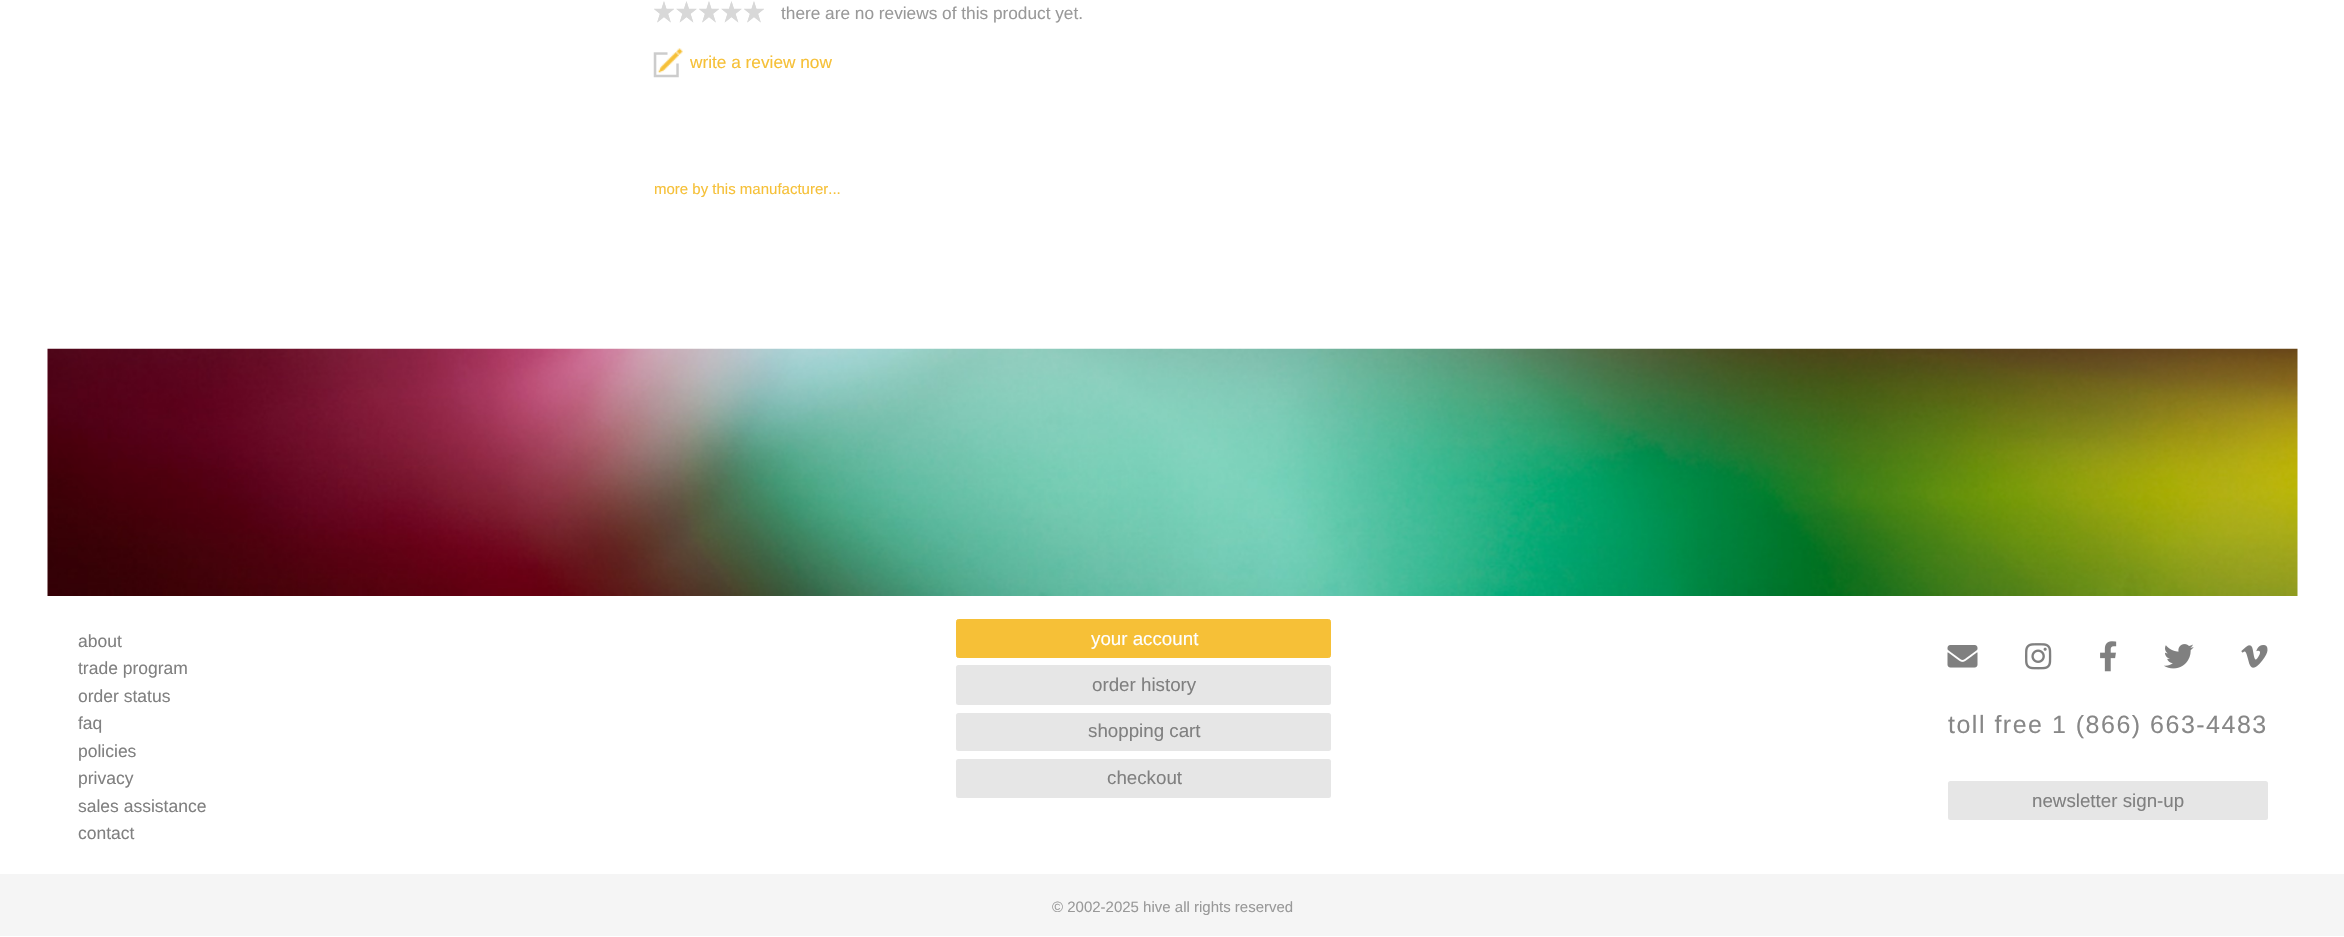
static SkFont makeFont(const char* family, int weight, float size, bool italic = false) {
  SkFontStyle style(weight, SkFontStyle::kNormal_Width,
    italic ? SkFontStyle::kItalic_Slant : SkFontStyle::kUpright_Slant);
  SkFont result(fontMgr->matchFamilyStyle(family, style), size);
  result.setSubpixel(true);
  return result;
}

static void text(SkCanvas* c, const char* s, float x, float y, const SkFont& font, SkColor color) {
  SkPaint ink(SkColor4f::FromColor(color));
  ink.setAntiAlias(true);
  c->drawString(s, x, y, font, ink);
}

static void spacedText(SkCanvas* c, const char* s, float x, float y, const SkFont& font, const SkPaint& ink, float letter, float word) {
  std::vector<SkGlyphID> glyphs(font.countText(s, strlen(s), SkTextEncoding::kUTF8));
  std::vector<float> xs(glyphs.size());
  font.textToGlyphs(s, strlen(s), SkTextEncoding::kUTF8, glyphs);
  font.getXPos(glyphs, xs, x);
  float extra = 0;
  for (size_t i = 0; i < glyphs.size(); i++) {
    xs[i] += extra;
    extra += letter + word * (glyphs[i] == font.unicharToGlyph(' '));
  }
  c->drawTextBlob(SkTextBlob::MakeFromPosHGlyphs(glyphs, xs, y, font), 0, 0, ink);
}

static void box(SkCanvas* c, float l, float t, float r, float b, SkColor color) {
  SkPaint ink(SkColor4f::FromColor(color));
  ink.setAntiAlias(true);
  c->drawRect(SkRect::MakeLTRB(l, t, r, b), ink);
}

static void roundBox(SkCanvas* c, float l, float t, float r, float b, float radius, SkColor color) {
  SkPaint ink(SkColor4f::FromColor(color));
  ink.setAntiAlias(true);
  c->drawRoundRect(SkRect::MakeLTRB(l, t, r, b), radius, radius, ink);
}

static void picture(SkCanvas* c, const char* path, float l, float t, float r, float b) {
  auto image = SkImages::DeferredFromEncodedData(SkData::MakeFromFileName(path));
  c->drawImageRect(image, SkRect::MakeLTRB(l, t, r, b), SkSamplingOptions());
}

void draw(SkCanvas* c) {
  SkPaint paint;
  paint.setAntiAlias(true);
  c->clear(0xffffffff);
  picture(c, "img_01.png", 654, 1, 674, 23);
  picture(c, "img_02.png", 676, 1, 697, 23);
  picture(c, "img_01.png", 699, 1, 719, 23);
  picture(c, "img_02.png", 721, 1, 742, 23);
  picture(c, "img_01.png", 744, 1, 764, 23);
  SkFont face1 = makeFont("Liberation Sans", 400, 17.25f);
  text(c, "there are no reviews of this product yet.", 781, 19, face1, 0xff999999);
  picture(c, "img_03.png", 653, 48, 683, 78);
  text(c, "write a review now", 690, 68, face1, 0xfff6c037);
  SkFont face2 = makeFont("Liberation Sans", 400, 15);
  text(c, "more by this manufacturer...", 654, 194, face2, 0xfff6c037);
  picture(c, "img_04.png", 47, 348, 2298, 596);
  SkFont face3 = makeFont("Liberation Sans", 400, 17.5f);
  text(c, "about", 78, 647, face3, 0xff808080);
  text(c, "trade program", 78, 674, face3, 0xff808080);
  text(c, "order status", 78, 702, face3, 0xff808080);
  text(c, "faq", 78, 729, face3, 0xff808080);
  text(c, "policies", 78, 757, face3, 0xff808080);
  text(c, "privacy", 78, 784, face3, 0xff808080);
  text(c, "sales assistance", 78, 812, face3, 0xff808080);
  text(c, "contact", 78, 839, face3, 0xff808080);
  paint.setColor(0xfff6c037);
  c->drawRoundRect(SkRect::MakeLTRB(956.5f, 619.5f, 1330.5f, 657.5f), 2, 2, paint);
  paint.setStyle(SkPaint::kStroke_Style);
  paint.setStrokeWidth(1);
  c->drawRoundRect(SkRect::MakeLTRB(956.5f, 619.5f, 1330.5f, 657.5f), 2, 2, paint);
  SkFont face4 = makeFont("Liberation Sans", 400, 18.75f);
  text(c, "your account", 1091, 645, face4, 0xffffffff);
  roundBox(c, 956, 665, 1331, 705, 2.5f, 0xffe6e6e6);
  text(c, "order history", 1092, 691, face4, 0xff808080);
  roundBox(c, 956, 713, 1331, 751, 2.5f, 0xffe6e6e6);
  text(c, "shopping cart", 1088, 737, face4, 0xff808080);
  roundBox(c, 956, 759, 1331, 798, 2.5f, 0xffe6e6e6);
  text(c, "checkout", 1107, 784, face4, 0xff808080);
  picture(c, "img_05.png", 1947, 645, 1978, 668);
  picture(c, "img_06.png", 2025, 643, 2052, 670);
  picture(c, "img_07.png", 2100, 641, 2117, 672);
  picture(c, "img_08.png", 2164, 644, 2194, 669);
  picture(c, "img_09.png", 2241, 645, 2268, 668);
  SkFont face5 = makeFont("Liberation Sans", 400, 25);
  paint.setStyle(SkPaint::kFill_Style);
  paint.setColor(0xff878787);
  spacedText(c, "toll free 1 (866) 663-4483", 1948, 733, face5, paint, 1.5f, 0);
  roundBox(c, 1948, 781, 2268, 820, 2.5f, 0xffe6e6e6);
  text(c, "newsletter sign-up", 2032, 807, face4, 0xff808080);
  box(c, 0, 874, 2344, 936, 0xfff5f5f5);
  text(c, "© 2002-2025 hive all rights reserved", 1052, 912, face2, 0xff999999);
}
